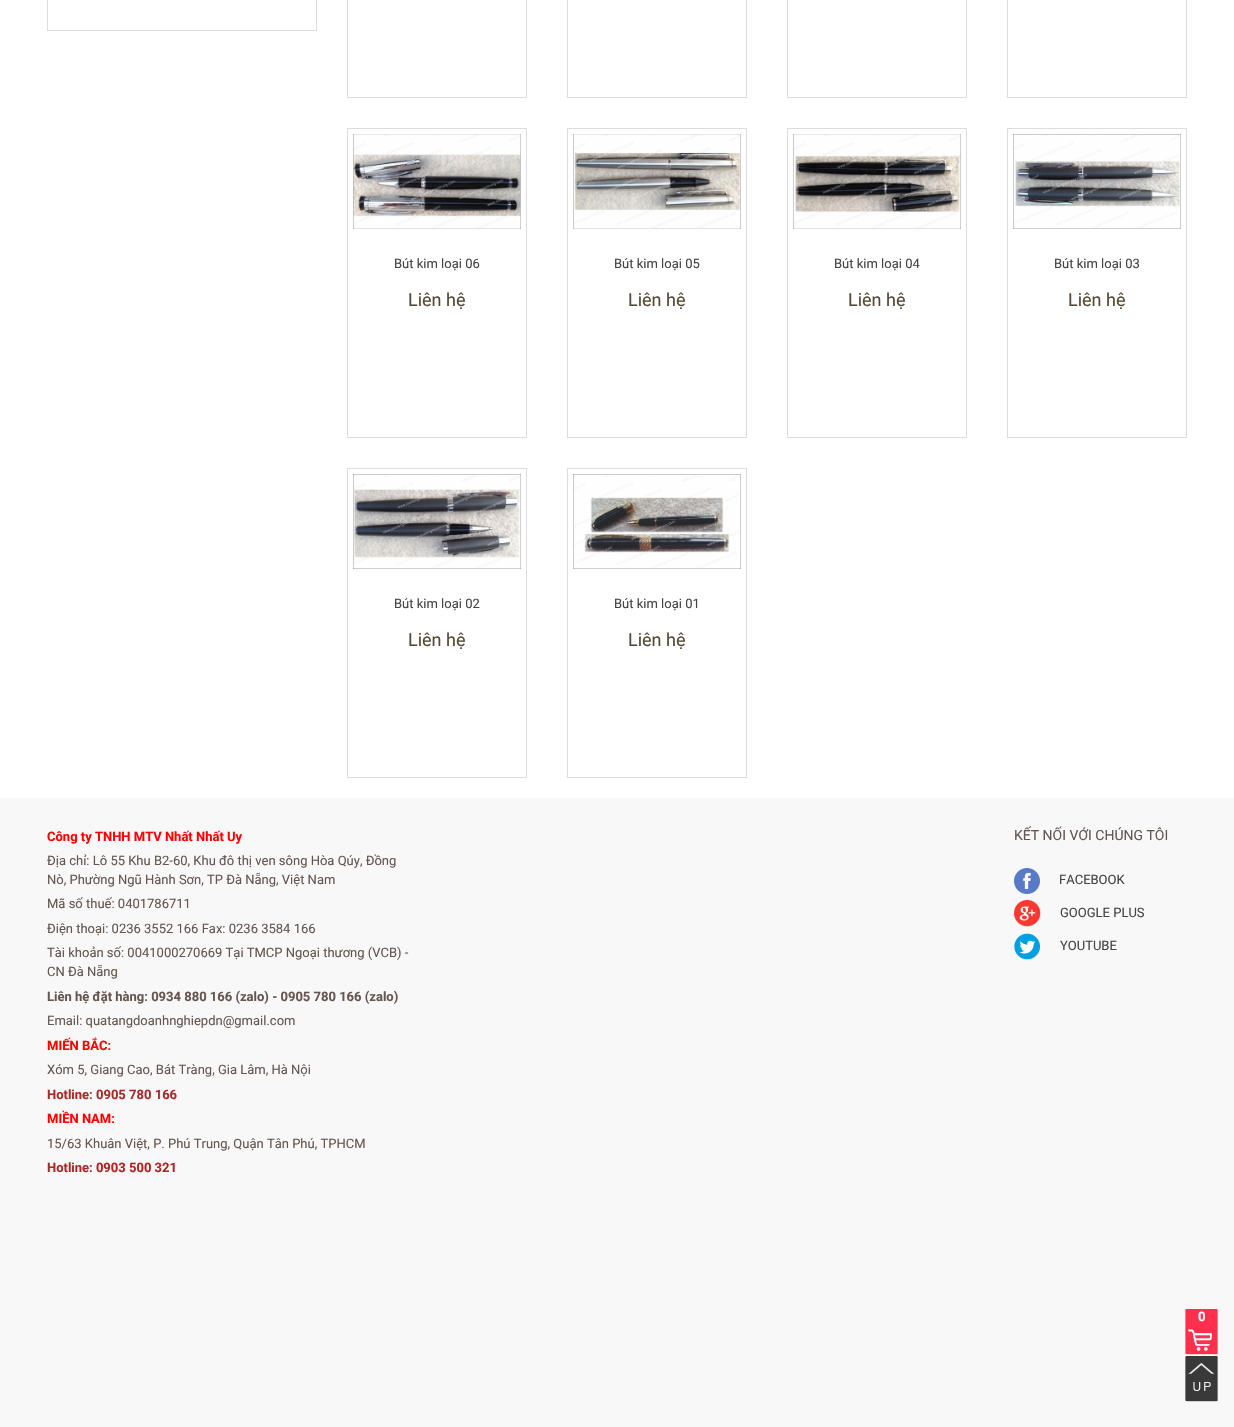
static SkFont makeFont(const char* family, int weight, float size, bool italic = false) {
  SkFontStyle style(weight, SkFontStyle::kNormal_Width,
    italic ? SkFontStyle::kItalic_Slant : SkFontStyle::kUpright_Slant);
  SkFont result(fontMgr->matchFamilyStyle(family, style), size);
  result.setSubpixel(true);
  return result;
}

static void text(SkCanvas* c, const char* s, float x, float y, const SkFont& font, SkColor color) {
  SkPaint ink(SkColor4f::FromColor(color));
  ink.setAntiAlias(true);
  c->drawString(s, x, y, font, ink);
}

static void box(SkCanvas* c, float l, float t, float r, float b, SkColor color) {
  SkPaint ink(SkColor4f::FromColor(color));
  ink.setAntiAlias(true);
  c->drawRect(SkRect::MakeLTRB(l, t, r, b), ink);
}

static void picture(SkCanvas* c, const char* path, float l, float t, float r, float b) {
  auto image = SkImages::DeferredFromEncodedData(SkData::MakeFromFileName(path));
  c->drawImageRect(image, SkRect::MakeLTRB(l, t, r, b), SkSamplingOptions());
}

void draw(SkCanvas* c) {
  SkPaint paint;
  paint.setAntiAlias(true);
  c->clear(0xfff8f8f8);
  box(c, 0, 0, 1234, 798, 0xffffffff);
  paint.setStyle(SkPaint::kStroke_Style);
  paint.setStrokeWidth(1);
  paint.setColor(0xffdddddd);
  c->drawRect(SkRect::MakeLTRB(47.5f, -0.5f, 316.5f, 30.5f), paint);
  c->drawRect(SkRect::MakeLTRB(347.5f, -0.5f, 526.5f, 97.5f), paint);
  c->drawRect(SkRect::MakeLTRB(567.5f, -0.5f, 746.5f, 97.5f), paint);
  c->drawRect(SkRect::MakeLTRB(787.5f, -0.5f, 966.5f, 97.5f), paint);
  c->drawRect(SkRect::MakeLTRB(1007.5f, -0.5f, 1186.5f, 97.5f), paint);
  c->drawRect(SkRect::MakeLTRB(347.5f, 128.5f, 526.5f, 437.5f), paint);
  picture(c, "img_01.png", 353, 134, 521, 229);
  SkFont face1 = makeFont("Roboto", 400, 13);
  text(c, "Bút kim loại 06", 394, 268, face1, 0xff444444);
  SkFont face2 = makeFont("Roboto", 400, 18);
  text(c, "Liên hệ", 408, 306, face2, 0xff554a36);
  c->drawRect(SkRect::MakeLTRB(567.5f, 128.5f, 746.5f, 437.5f), paint);
  picture(c, "img_02.png", 573, 134, 741, 229);
  text(c, "Bút kim loại 05", 614, 268, face1, 0xff444444);
  text(c, "Liên hệ", 628, 306, face2, 0xff554a36);
  c->drawRect(SkRect::MakeLTRB(787.5f, 128.5f, 966.5f, 437.5f), paint);
  picture(c, "img_03.png", 793, 134, 961, 229);
  text(c, "Bút kim loại 04", 834, 268, face1, 0xff444444);
  text(c, "Liên hệ", 848, 306, face2, 0xff554a36);
  c->drawRect(SkRect::MakeLTRB(1007.5f, 128.5f, 1186.5f, 437.5f), paint);
  picture(c, "img_04.png", 1013, 134, 1181, 229);
  text(c, "Bút kim loại 03", 1054, 268, face1, 0xff444444);
  text(c, "Liên hệ", 1068, 306, face2, 0xff554a36);
  c->drawRect(SkRect::MakeLTRB(347.5f, 468.5f, 526.5f, 777.5f), paint);
  picture(c, "img_05.png", 353, 474, 521, 569);
  text(c, "Bút kim loại 02", 394, 608, face1, 0xff444444);
  text(c, "Liên hệ", 408, 646, face2, 0xff554a36);
  c->drawRect(SkRect::MakeLTRB(567.5f, 468.5f, 746.5f, 777.5f), paint);
  picture(c, "img_06.png", 573, 474, 741, 569);
  text(c, "Bút kim loại 01", 614, 608, face1, 0xff444444);
  text(c, "Liên hệ", 628, 646, face2, 0xff554a36);
  SkFont face3 = makeFont("Roboto", 700, 13);
  text(c, "Công ty TNHH MTV Nhất Nhất Uy", 47, 841, face3, 0xffff0000);
  text(c, "Địa chỉ: Lô 55 Khu B2-60, Khu đô thị ven sông Hòa Qúy, Đồng", 47, 865, face1, 0xff65564f);
  text(c, "Nò, Phường Ngũ Hành Sơn, TP Đà Nẵng, Việt Nam", 47, 884, face1, 0xff65564f);
  text(c, "Mã số thuế: 0401786711", 47, 908, face1, 0xff65564f);
  text(c, "Điện thoại: 0236 3552 166 Fax: 0236 3584 166", 47, 933, face1, 0xff65564f);
  text(c, "Tài khoản số: 0041000270669 Tại TMCP Ngoại thương (VCB) -", 47, 957, face1, 0xff65564f);
  text(c, "CN Đà Nẵng", 47, 976, face1, 0xff65564f);
  text(c, "Liên hệ đặt hàng: 0934 880 166 (zalo) - 0905 780 166 (zalo)", 47, 1001, face3, 0xff65564f);
  text(c, "Email: quatangdoanhnghiepdn@gmail.com", 47, 1025, face1, 0xff65564f);
  text(c, "MIẾN BẮC:", 47, 1050, face3, 0xffff0000);
  text(c, "Xóm 5, Giang Cao, Bát Tràng, Gia Lâm, Hà Nội", 47, 1074, face1, 0xff65564f);
  text(c, "Hotline: 0905 780 166", 47, 1099, face3, 0xffa52a2a);
  text(c, "MIỀN NAM:", 47, 1123, face3, 0xffff0000);
  text(c, "15/63 Khuân Việt, P. Phú Trung, Quận Tân Phú, TPHCM", 47, 1148, face1, 0xff65564f);
  text(c, "Hotline", 47, 1172, face3, 0xffa52a2a);
  text(c, ": 0903 500 321", 89, 1172, face3, 0xffb22222);
  SkFont face4 = makeFont("Roboto", 400, 14);
  text(c, "KẾT NỐI VỚI CHÚNG TÔI", 1014, 840, face4, 0xff65564f);
  picture(c, "img_07.png", 1014, 868, 1040, 894);
  text(c, "FACEBOOK", 1059, 884, face1, 0xff444444);
  picture(c, "img_08.png", 1014, 900, 1041, 927);
  text(c, "GOOGLE PLUS", 1060, 917, face1, 0xff444444);
  picture(c, "img_09.png", 1014, 933, 1040, 960);
  text(c, "YOUTUBE", 1060, 950, face1, 0xff444444);
  picture(c, "img_10.png", 1185, 1309, 1218, 1355);
  text(c, "0", 1198, 1321, face3, 0xffffffff);
  picture(c, "img_11.png", 1185, 1356, 1218, 1402);
}
